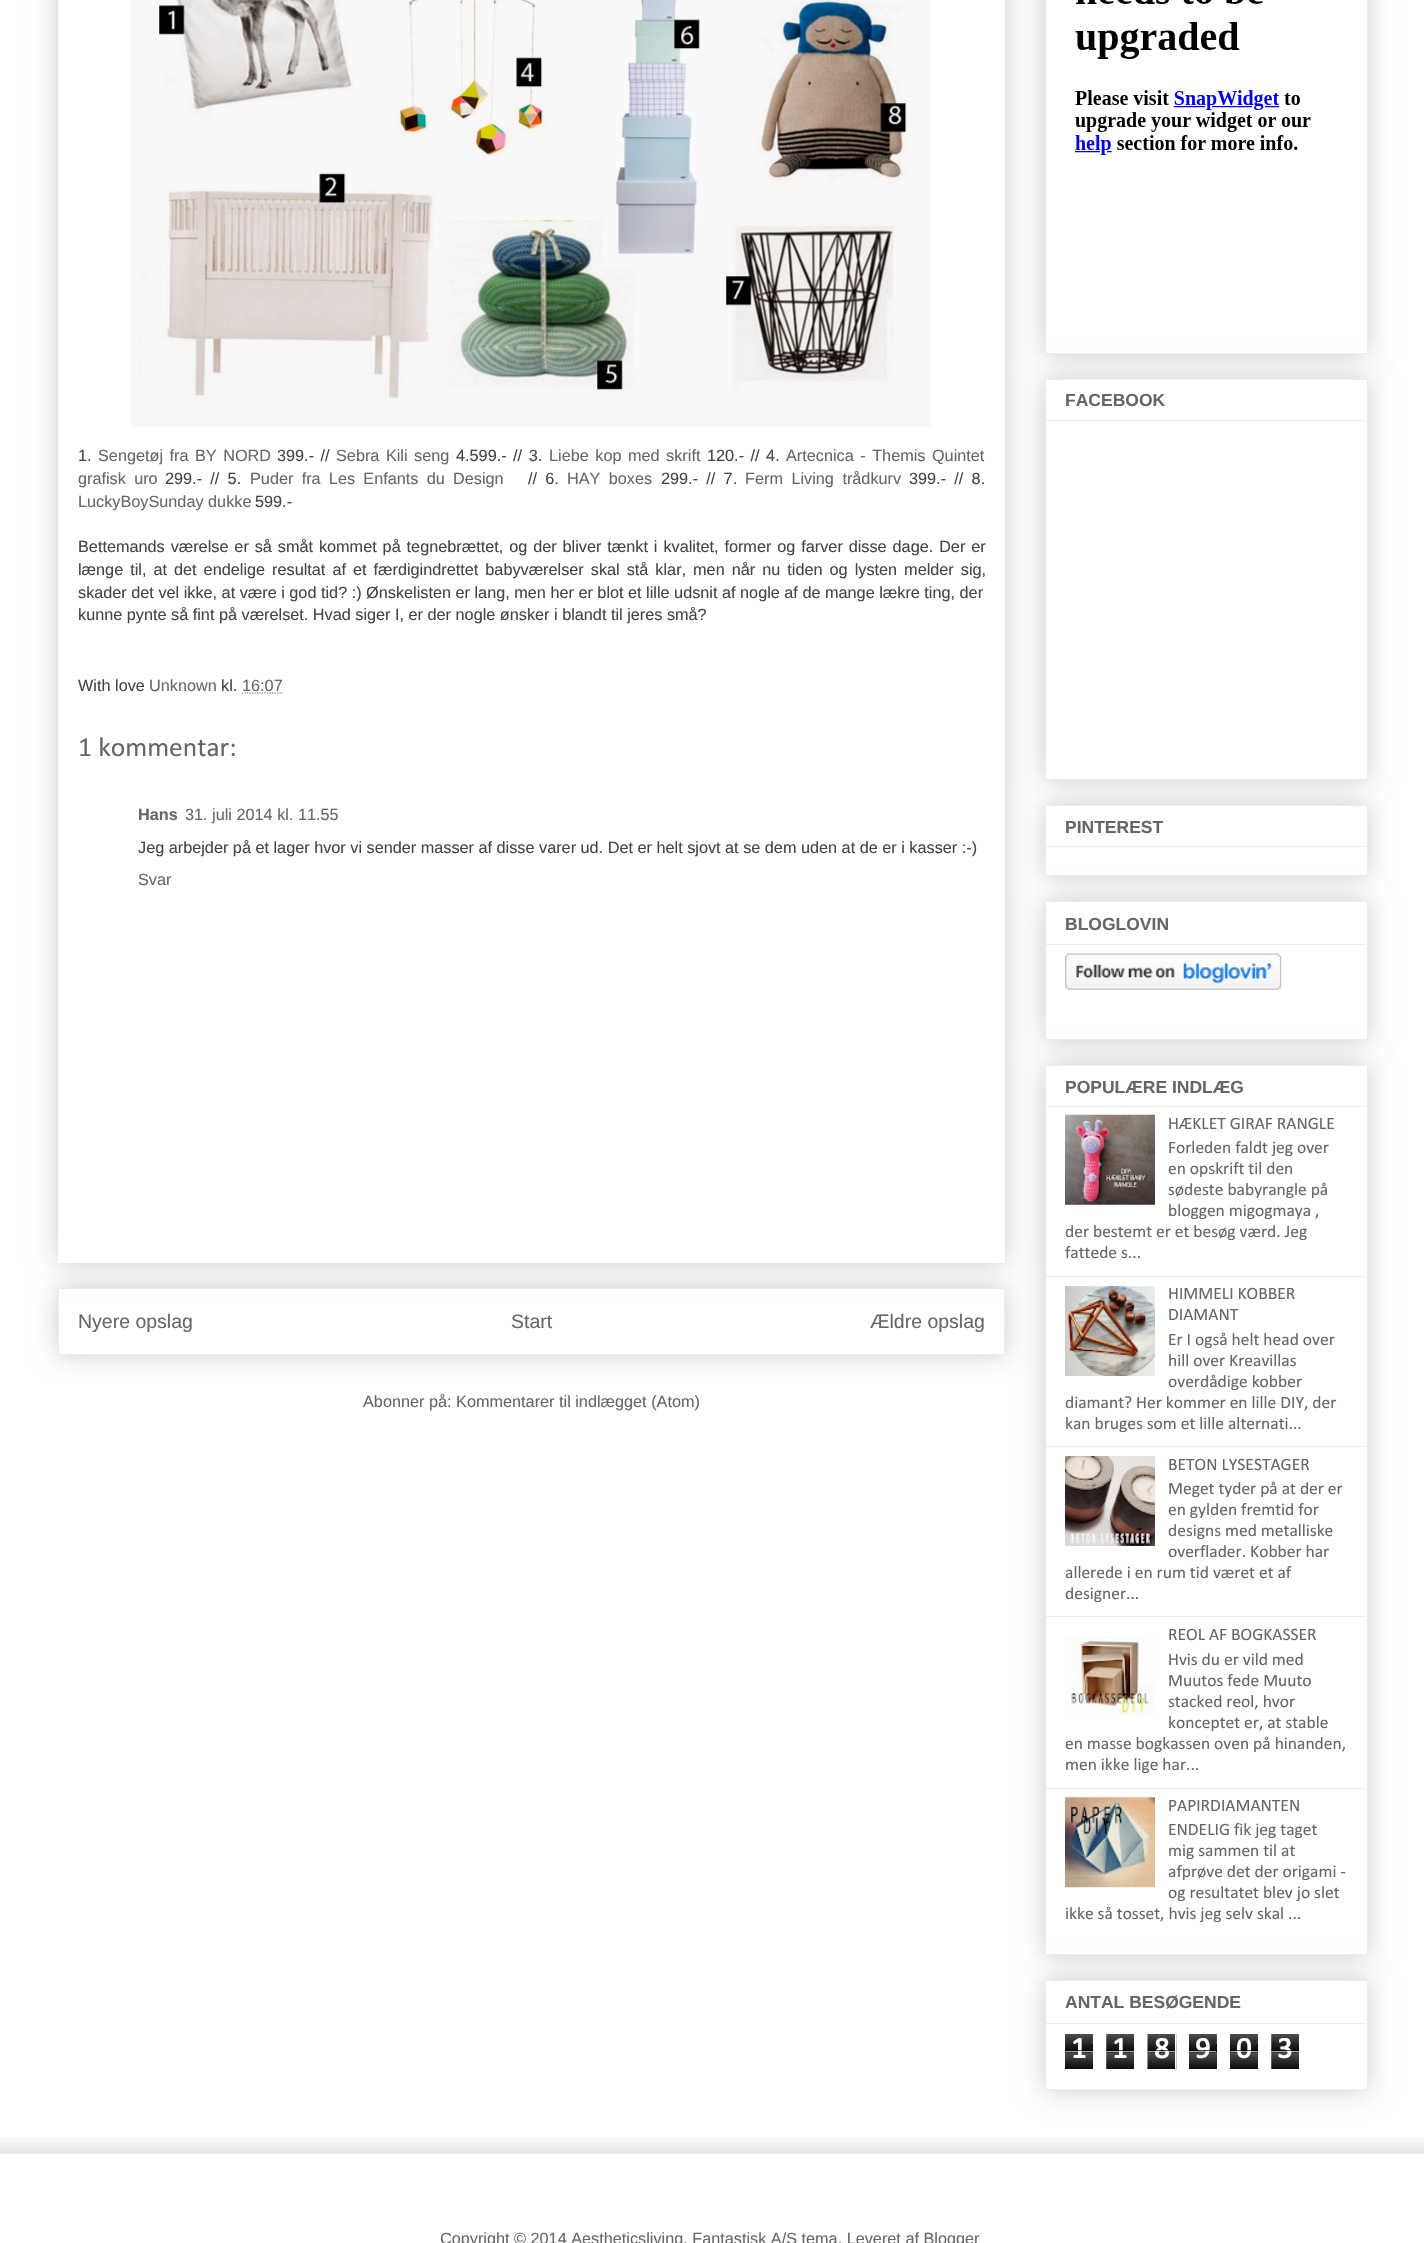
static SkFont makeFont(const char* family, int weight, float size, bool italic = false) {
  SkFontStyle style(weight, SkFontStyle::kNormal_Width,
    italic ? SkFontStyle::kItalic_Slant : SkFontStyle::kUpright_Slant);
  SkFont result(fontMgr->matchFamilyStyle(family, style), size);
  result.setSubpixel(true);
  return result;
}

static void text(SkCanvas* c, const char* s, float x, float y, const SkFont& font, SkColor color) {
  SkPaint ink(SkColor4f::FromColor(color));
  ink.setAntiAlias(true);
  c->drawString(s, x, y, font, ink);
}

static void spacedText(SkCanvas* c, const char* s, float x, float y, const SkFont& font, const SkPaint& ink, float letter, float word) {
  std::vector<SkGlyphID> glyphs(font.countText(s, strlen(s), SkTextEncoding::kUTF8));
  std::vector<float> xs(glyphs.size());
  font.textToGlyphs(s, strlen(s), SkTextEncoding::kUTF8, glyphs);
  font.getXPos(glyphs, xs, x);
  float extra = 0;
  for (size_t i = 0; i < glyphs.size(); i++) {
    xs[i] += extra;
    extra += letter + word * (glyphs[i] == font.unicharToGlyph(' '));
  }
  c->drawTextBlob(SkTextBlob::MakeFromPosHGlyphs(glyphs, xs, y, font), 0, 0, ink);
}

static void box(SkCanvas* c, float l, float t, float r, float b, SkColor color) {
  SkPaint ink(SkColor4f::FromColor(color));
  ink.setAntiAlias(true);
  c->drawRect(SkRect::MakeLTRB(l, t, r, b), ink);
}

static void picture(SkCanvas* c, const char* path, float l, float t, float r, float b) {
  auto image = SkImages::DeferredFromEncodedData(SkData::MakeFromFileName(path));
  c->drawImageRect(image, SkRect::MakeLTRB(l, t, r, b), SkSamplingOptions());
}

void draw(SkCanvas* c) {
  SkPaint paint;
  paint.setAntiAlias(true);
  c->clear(0xffffffff);
  c->save();
  c->clipPath(SkPathBuilder(SkPathFillType::kEvenOdd).moveTo(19, 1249).lineTo(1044, 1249).lineTo(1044, 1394).lineTo(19, 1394).close().moveTo(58, 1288).lineTo(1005, 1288).lineTo(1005, 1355).lineTo(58, 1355).close().detach(), true);
  paint.setColor(0x33000000);
  paint.setMaskFilter(SkMaskFilter::MakeBlur(kNormal_SkBlurStyle, 12.5f));
  c->drawRect(SkRect::MakeLTRB(58, 1288, 1005, 1355), paint);
  paint.setMaskFilter(nullptr);
  c->restore();
  paint.setStyle(SkPaint::kStroke_Style);
  paint.setStrokeWidth(1);
  paint.setColor(0xffeeeeee);
  c->drawRect(SkRect::MakeLTRB(58.5f, 1288.5f, 1004.5f, 1354.5f), paint);
  paint.setStyle(SkPaint::kFill_Style);
  paint.setColor(0x33000000);
  paint.setMaskFilter(SkMaskFilter::MakeBlur(kNormal_SkBlurStyle, 12.5f));
  c->drawRect(SkRect::MakeLTRB(58, -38, 1005, 1263), paint);
  paint.setMaskFilter(nullptr);
  box(c, 58, 0, 1005, 1263, 0xffffffff);
  picture(c, "img_01.png", 131, 0, 931, 427);
  SkFont face1 = makeFont("Liberation Sans", 400, 16.25f);
  text(c, "1.", 78, 461, face1, 0xff444444);
  paint.setColor(0xff666666);
  spacedText(c, "Sengetøj fra BY NORD", 98, 461, face1, paint, 0, 2);
  paint.setColor(0xff444444);
  spacedText(c, "399.- //", 277, 461, face1, paint, 0, 2);
  paint.setColor(0xff666666);
  spacedText(c, "Sebra Kili seng", 336, 461, face1, paint, 0, 2);
  paint.setColor(0xff444444);
  spacedText(c, "4.599.- // 3.", 456, 461, face1, paint, 0, 2);
  paint.setColor(0xff666666);
  spacedText(c, "Liebe kop med skrift", 549, 461, face1, paint, 0, 2);
  paint.setColor(0xff444444);
  spacedText(c, "120.- // 4.", 707, 461, face1, paint, 0, 2);
  paint.setColor(0xff666666);
  spacedText(c, "Artecnica - Themis Quintet", 786, 461, face1, paint, 0, 2);
  spacedText(c, "grafisk uro", 78, 484, face1, paint, 0, 3.75f);
  paint.setColor(0xff444444);
  spacedText(c, "299.- // 5.", 165, 484, face1, paint, 0, 3.75f);
  paint.setColor(0xff666666);
  spacedText(c, "Puder fra Les Enfants du Design", 250, 484, face1, paint, 0, 3.75f);
  paint.setColor(0xff444444);
  spacedText(c, "// 6.", 528, 484, face1, paint, 0, 3.75f);
  paint.setColor(0xff666666);
  spacedText(c, "HAY boxes", 567, 484, face1, paint, 0, 3.75f);
  paint.setColor(0xff444444);
  spacedText(c, "299.- // 7.", 661, 484, face1, paint, 0, 3.75f);
  paint.setColor(0xff666666);
  spacedText(c, "Ferm Living trådkurv", 745, 484, face1, paint, 0, 4);
  paint.setColor(0xff444444);
  spacedText(c, "399.- // 8.", 909, 484, face1, paint, 0, 3.75f);
  text(c, "LuckyBoySunday dukke", 78, 507, face1, 0xff666666);
  text(c, "599.-", 255, 507, face1, 0xff444444);
  spacedText(c, "Bettemands værelse er så småt kommet på tegnebrættet, og der bliver tænkt i kvalitet, former og farver disse dage. Der er", 78, 552, face1, paint, 0, 1.4f);
  spacedText(c, "længe til, at det endelige resultat af et færdigindrettet babyværelser skal stå klar, men når nu tiden og lysten melder sig,", 78, 575, face1, paint, 0, 2.5f);
  text(c, "skader det vel ikke, at være i god tid? :) Ønskelisten er lang, men her er blot et lille udsnit af nogle af de mange lækre ting, der", 78, 598, face1, 0xff444444);
  text(c, "kunne pynte så fint på værelset. Hvad siger I, er der nogle ønsker i blandt til jeres små?", 78, 620, face1, 0xff444444);
  text(c, "With love", 78, 691, face1, 0xff444444);
  text(c, "Unknown", 149, 691, face1, 0xff666666);
  text(c, "kl.", 221, 691, face1, 0xff444444);
  text(c, "16:07", 242, 691, face1, 0xff666666);
  paint.setStyle(SkPaint::kStroke_Style);
  paint.setStrokeWidth(1.2f);
  paint.setColor(0xff666666);
  paint.setPathEffect(SkDashPathEffect::Make({{1.25f, 1.25f}}, 0));
  c->drawPath(SkPathBuilder().moveTo(242, 693).lineTo(282.5f, 693).detach(), paint);
  paint.setPathEffect(nullptr);
  SkFont face2 = makeFont("Calibri", 400, 27.5f);
  text(c, "1 kommentar:", 78, 756, face2, 0xff666666);
  SkFont face3 = makeFont("Liberation Sans", 700, 16.25f);
  text(c, "Hans", 138, 820, face3, 0xff666666);
  text(c, "31. juli 2014 kl. 11.55", 185, 820, face1, 0xff666666);
  text(c, "Jeg arbejder på et lager hvor vi sender masser af disse varer ud. Det er helt sjovt at se dem uden at de er i kasser :-)", 138, 853, face1, 0xff444444);
  text(c, "Svar", 138, 885, face1, 0xff666666);
  SkFont face4 = makeFont("Liberation Sans", 400, 19.5f);
  text(c, "Nyere opslag", 78, 1328, face4, 0xff666666);
  text(c, "Start", 511, 1328, face4, 0xff666666);
  text(c, "Ældre opslag", 870, 1328, face4, 0xff666666);
  text(c, "Abonner på: Kommentarer til indlægget (Atom)", 363, 1407, face1, 0xff666666);
  paint.setStyle(SkPaint::kFill_Style);
  paint.setColor(0x33000000);
  paint.setMaskFilter(SkMaskFilter::MakeBlur(kNormal_SkBlurStyle, 12.5f));
  c->drawRect(SkRect::MakeLTRB(1045, -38, 1368, 354), paint);
  paint.setMaskFilter(nullptr);
  paint.setColor(0xffffffff);
  c->drawRect(SkRect::MakeLTRB(1045.5f, -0.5f, 1367.5f, 353.5f), paint);
  paint.setStyle(SkPaint::kStroke_Style);
  paint.setStrokeWidth(1);
  paint.setColor(0xffeeeeee);
  c->drawRect(SkRect::MakeLTRB(1045.5f, -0.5f, 1367.5f, 353.5f), paint);
  picture(c, "img_02.png", 1075, 0, 1311, 155);
  paint.setStyle(SkPaint::kFill_Style);
  paint.setColor(0x33000000);
  paint.setMaskFilter(SkMaskFilter::MakeBlur(kNormal_SkBlurStyle, 12.5f));
  c->drawRect(SkRect::MakeLTRB(1045, 379, 1368, 780), paint);
  paint.setMaskFilter(nullptr);
  paint.setColor(0xffffffff);
  c->drawRect(SkRect::MakeLTRB(1045.5f, 379.5f, 1367.5f, 779.5f), paint);
  paint.setStyle(SkPaint::kStroke_Style);
  paint.setColor(0xffeeeeee);
  c->drawRect(SkRect::MakeLTRB(1045.5f, 379.5f, 1367.5f, 779.5f), paint);
  SkFont face5 = makeFont("Liberation Sans", 700, 17.5f);
  text(c, "FACEBOOK", 1065, 406, face5, 0xff666666);
  box(c, 1046, 420, 1366, 421, 0xffeeeeee);
  paint.setStyle(SkPaint::kFill_Style);
  paint.setColor(0x33000000);
  paint.setMaskFilter(SkMaskFilter::MakeBlur(kNormal_SkBlurStyle, 12.5f));
  c->drawRect(SkRect::MakeLTRB(1045, 805, 1368, 876), paint);
  paint.setMaskFilter(nullptr);
  paint.setColor(0xffffffff);
  c->drawRect(SkRect::MakeLTRB(1045.5f, 805.5f, 1367.5f, 875.5f), paint);
  paint.setStyle(SkPaint::kStroke_Style);
  paint.setColor(0xffeeeeee);
  c->drawRect(SkRect::MakeLTRB(1045.5f, 805.5f, 1367.5f, 875.5f), paint);
  text(c, "PINTEREST", 1065, 833, face5, 0xff666666);
  box(c, 1046, 846, 1366, 847, 0xffeeeeee);
  paint.setStyle(SkPaint::kFill_Style);
  paint.setColor(0x33000000);
  paint.setMaskFilter(SkMaskFilter::MakeBlur(kNormal_SkBlurStyle, 12.5f));
  c->drawRect(SkRect::MakeLTRB(1045, 901, 1368, 1040), paint);
  paint.setMaskFilter(nullptr);
  paint.setColor(0xffffffff);
  c->drawRect(SkRect::MakeLTRB(1045.5f, 901.5f, 1367.5f, 1039.5f), paint);
  paint.setStyle(SkPaint::kStroke_Style);
  paint.setColor(0xffeeeeee);
  c->drawRect(SkRect::MakeLTRB(1045.5f, 901.5f, 1367.5f, 1039.5f), paint);
  text(c, "BLOGLOVIN", 1065, 930, face5, 0xff666666);
  box(c, 1046, 944, 1366, 945, 0xffeeeeee);
  picture(c, "img_03.png", 1065, 953, 1282, 990);
  paint.setStyle(SkPaint::kFill_Style);
  paint.setColor(0x33000000);
  paint.setMaskFilter(SkMaskFilter::MakeBlur(kNormal_SkBlurStyle, 12.5f));
  c->drawRect(SkRect::MakeLTRB(1045, 1065, 1368, 1955), paint);
  paint.setMaskFilter(nullptr);
  paint.setColor(0xffffffff);
  c->drawRect(SkRect::MakeLTRB(1045.5f, 1065.5f, 1367.5f, 1954.5f), paint);
  paint.setStyle(SkPaint::kStroke_Style);
  paint.setColor(0xffeeeeee);
  c->drawRect(SkRect::MakeLTRB(1045.5f, 1065.5f, 1367.5f, 1954.5f), paint);
  text(c, "POPULÆRE INDLÆG", 1065, 1093, face5, 0xff666666);
  box(c, 1046, 1106, 1366, 1107, 0xffeeeeee);
  picture(c, "img_04.png", 1065, 1114, 1155, 1205);
  SkFont face6 = makeFont("Calibri", 400, 17.5f);
  text(c, "HÆKLET GIRAF RANGLE", 1168, 1129, face6, 0xff666666);
  text(c, "Forleden faldt jeg over", 1168, 1153, face6, 0xff666666);
  text(c, "en opskrift til den", 1168, 1174, face6, 0xff666666);
  text(c, "sødeste babyrangle på", 1168, 1195, face6, 0xff666666);
  text(c, "bloggen migogmaya ,", 1168, 1216, face6, 0xff666666);
  text(c, "der bestemt er et besøg værd. Jeg", 1065, 1237, face6, 0xff666666);
  text(c, "fattede s...", 1065, 1258, face6, 0xff666666);
  box(c, 1046, 1276, 1366, 1277, 0xffeeeeee);
  picture(c, "img_05.png", 1065, 1286, 1155, 1376);
  text(c, "HIMMELI KOBBER", 1168, 1299, face6, 0xff666666);
  text(c, "DIAMANT", 1168, 1320, face6, 0xff666666);
  text(c, "Er I også helt head over", 1168, 1345, face6, 0xff666666);
  text(c, "hill over Kreavillas", 1168, 1366, face6, 0xff666666);
  text(c, "overdådige kobber", 1168, 1387, face6, 0xff666666);
  text(c, "diamant? Her kommer en lille DIY, der", 1065, 1408, face6, 0xff666666);
  text(c, "kan bruges som et lille alternati...", 1065, 1429, face6, 0xff666666);
  box(c, 1046, 1446, 1366, 1447, 0xffeeeeee);
  picture(c, "img_06.png", 1065, 1456, 1155, 1546);
  text(c, "BETON LYSESTAGER", 1168, 1470, face6, 0xff666666);
  text(c, "Meget tyder på at der er", 1168, 1494, face6, 0xff666666);
  text(c, "en gylden fremtid for", 1168, 1515, face6, 0xff666666);
  text(c, "designs med metalliske", 1168, 1536, face6, 0xff666666);
  text(c, "overflader. Kobber har", 1168, 1557, face6, 0xff666666);
  text(c, "allerede i en rum tid været et af", 1065, 1578, face6, 0xff666666);
  text(c, "designer...", 1065, 1599, face6, 0xff666666);
  box(c, 1046, 1616, 1366, 1617, 0xffeeeeee);
  text(c, "REOL AF BOGKASSER", 1168, 1640, face6, 0xff666666);
  picture(c, "img_07.png", 1065, 1636, 1155, 1716);
  text(c, "Hvis du er vild med", 1168, 1665, face6, 0xff666666);
  text(c, "Muutos fede Muuto", 1168, 1686, face6, 0xff666666);
  text(c, "stacked reol, hvor", 1168, 1707, face6, 0xff666666);
  text(c, "konceptet er, at stable", 1168, 1728, face6, 0xff666666);
  text(c, "en masse bogkassen oven på hinanden,", 1065, 1749, face6, 0xff666666);
  text(c, "men ikke lige har...", 1065, 1770, face6, 0xff666666);
  box(c, 1046, 1788, 1366, 1789, 0xffeeeeee);
  picture(c, "img_08.png", 1065, 1797, 1155, 1888);
  text(c, "PAPIRDIAMANTEN", 1168, 1811, face6, 0xff666666);
  text(c, "ENDELIG fik jeg taget", 1168, 1835, face6, 0xff666666);
  text(c, "mig sammen til at", 1168, 1856, face6, 0xff666666);
  text(c, "afprøve det der origami -", 1168, 1877, face6, 0xff666666);
  text(c, "og resultatet blev jo slet", 1168, 1898, face6, 0xff666666);
  text(c, "ikke så tosset, hvis jeg selv skal ...", 1065, 1919, face6, 0xff666666);
  paint.setStyle(SkPaint::kFill_Style);
  paint.setColor(0x33000000);
  paint.setMaskFilter(SkMaskFilter::MakeBlur(kNormal_SkBlurStyle, 12.5f));
  c->drawRect(SkRect::MakeLTRB(1045, 1980, 1368, 2090), paint);
  paint.setMaskFilter(nullptr);
  paint.setColor(0xffffffff);
  c->drawRect(SkRect::MakeLTRB(1045.5f, 1980.5f, 1367.5f, 2089.5f), paint);
  paint.setStyle(SkPaint::kStroke_Style);
  paint.setColor(0xffeeeeee);
  c->drawRect(SkRect::MakeLTRB(1045.5f, 1980.5f, 1367.5f, 2089.5f), paint);
  text(c, "ANTAL BESØGENDE", 1065, 2008, face5, 0xff666666);
  box(c, 1046, 2023, 1366, 2024, 0xffeeeeee);
  picture(c, "img_09.png", 1065, 2034, 1093, 2069);
  SkFont face7 = makeFont("Calibri", 700, 30);
  text(c, "1", 1071, 2058, face7, 0xffffffff);
  box(c, 1065, 2050, 1093, 2051, 0xa6000000);
  box(c, 1065, 2051, 1093, 2052, 0xa6ffffff);
  picture(c, "img_10.png", 1106, 2034, 1134, 2069);
  text(c, "1", 1112, 2058, face7, 0xffffffff);
  box(c, 1106, 2050, 1134, 2051, 0xa6000000);
  box(c, 1106, 2051, 1134, 2052, 0xa6ffffff);
  picture(c, "img_11.png", 1147, 2033, 1177, 2070);
  paint.setColor(0xffffffff);
  c->drawRect(SkRect::MakeLTRB(1146.5f, 2033.5f, 1175.5f, 2069.5f), paint);
  text(c, "8", 1154, 2058, face7, 0xffffffff);
  box(c, 1148, 2050, 1175, 2051, 0xa6000000);
  box(c, 1148, 2051, 1175, 2052, 0xa6ffffff);
  picture(c, "img_12.png", 1189, 2034, 1217, 2069);
  text(c, "9", 1195, 2058, face7, 0xffffffff);
  box(c, 1189, 2050, 1216, 2051, 0xa6000000);
  box(c, 1189, 2051, 1216, 2052, 0xa6ffffff);
  picture(c, "img_09.png", 1230, 2034, 1258, 2069);
  text(c, "0", 1236, 2058, face7, 0xffffffff);
  box(c, 1230, 2050, 1258, 2051, 0xa6000000);
  box(c, 1230, 2051, 1258, 2052, 0xa6ffffff);
  picture(c, "img_10.png", 1271, 2034, 1299, 2069);
  text(c, "3", 1277, 2058, face7, 0xffffffff);
  box(c, 1271, 2050, 1299, 2051, 0xa6000000);
  box(c, 1271, 2051, 1299, 2052, 0xa6ffffff);
  c->save();
  c->clipRect(SkRect::MakeLTRB(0, 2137, 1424, 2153));
  paint.setStyle(SkPaint::kFill_Style);
  paint.setColor(0x33000000);
  paint.setMaskFilter(SkMaskFilter::MakeBlur(kNormal_SkBlurStyle, 12.5f));
  c->drawRect(SkRect::MakeLTRB(-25, 2153, 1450, 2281), paint);
  paint.setMaskFilter(nullptr);
  c->restore();
  box(c, 0, 2153, 1424, 2154, 0xffeeeeee);
  text(c, "Copyright © 2014 Aestheticsliving. Fantastisk A/S tema. Leveret af Blogger", 440, 2244, face1, 0xff666666);
}
